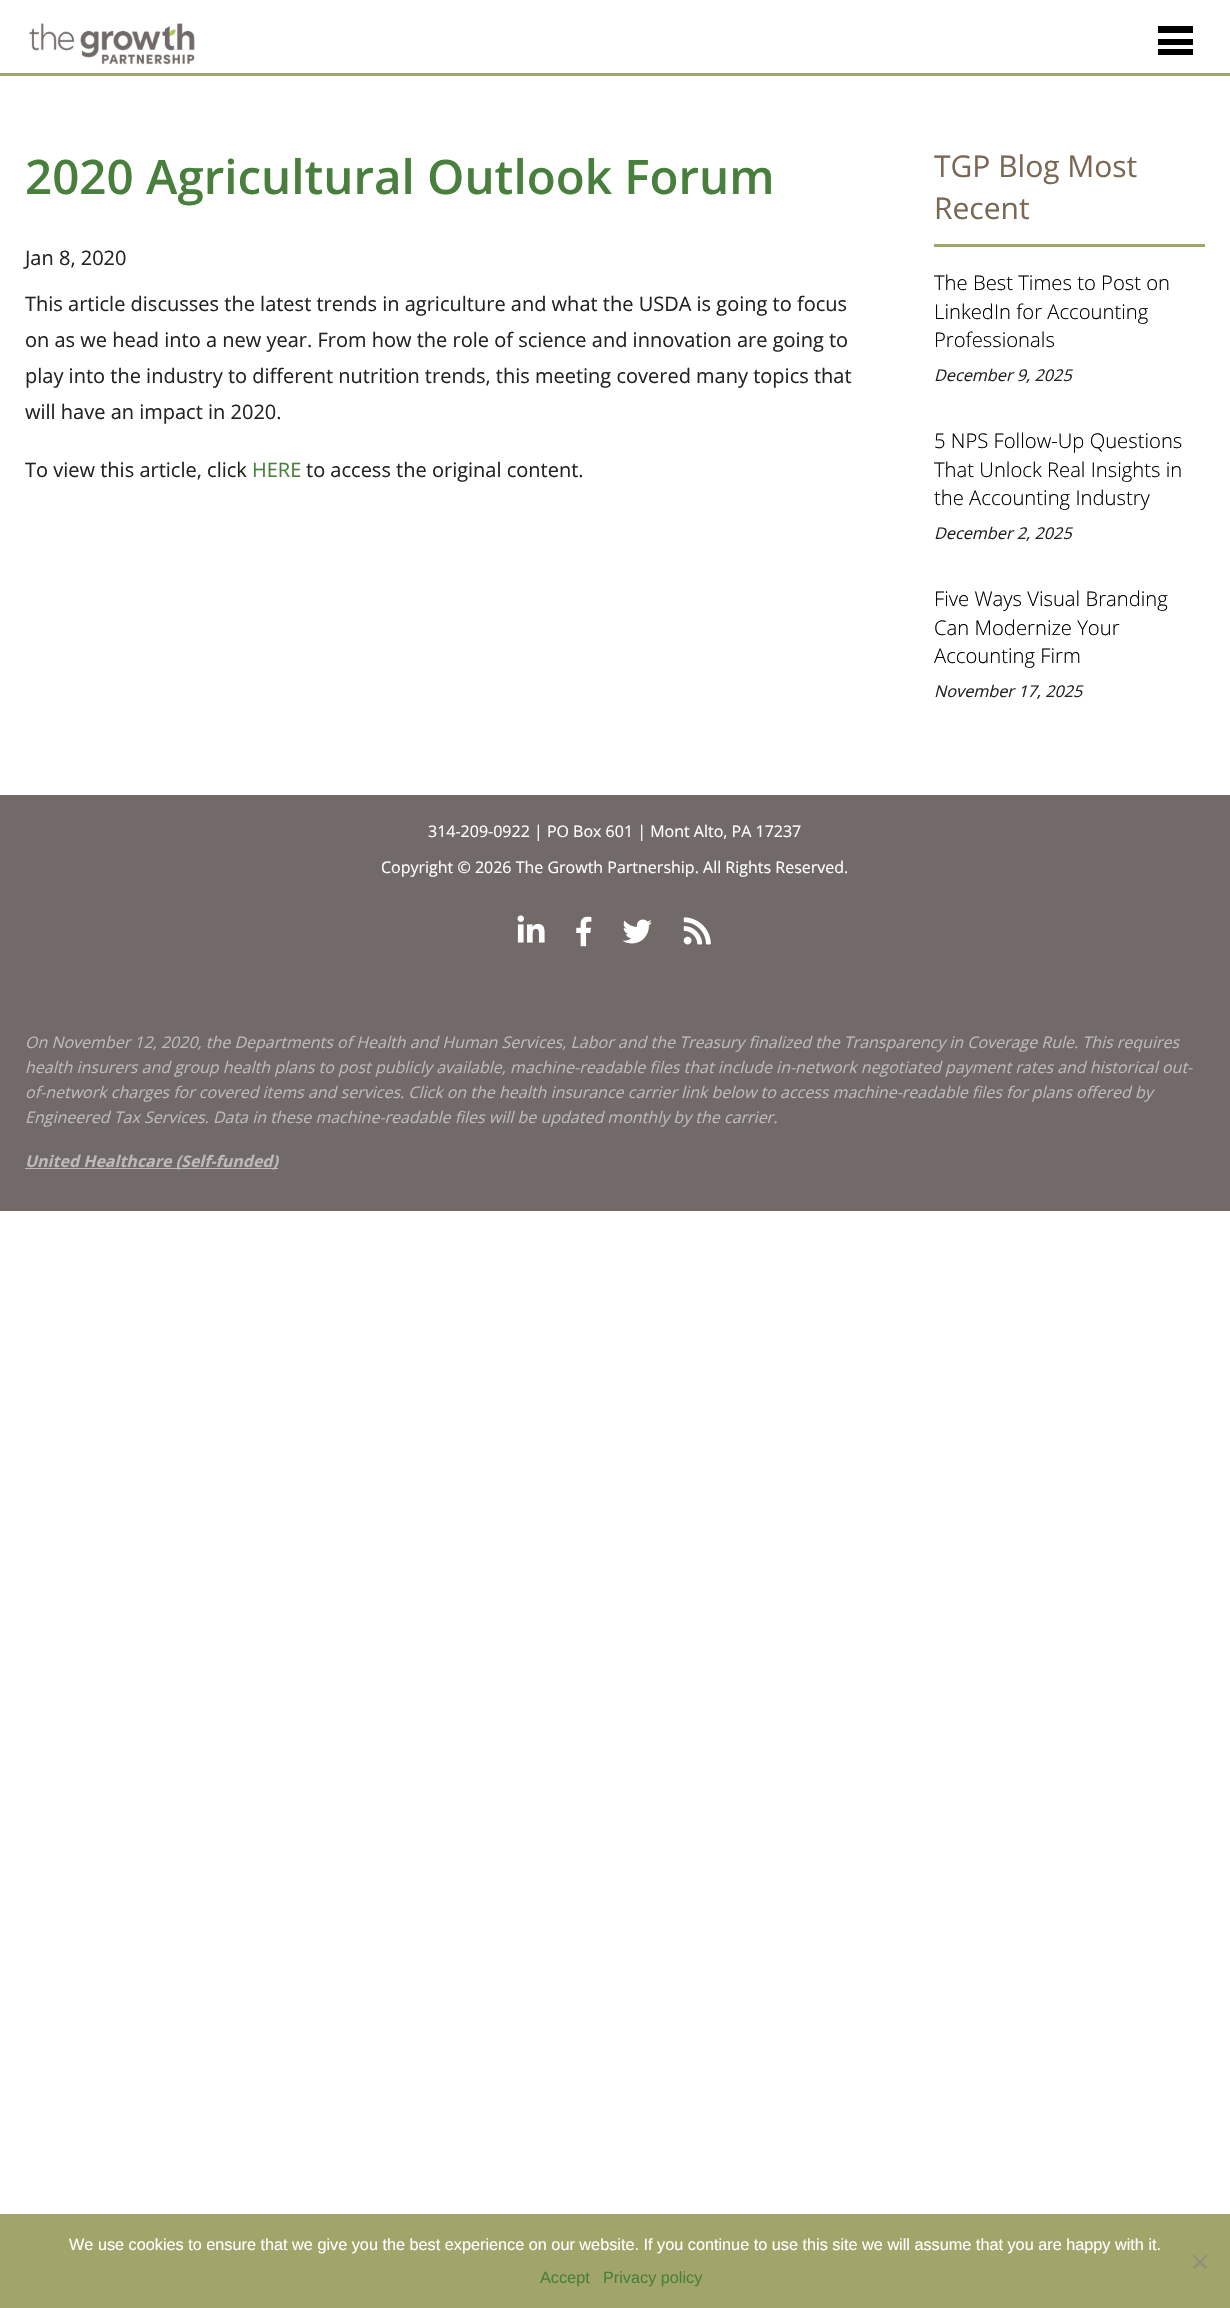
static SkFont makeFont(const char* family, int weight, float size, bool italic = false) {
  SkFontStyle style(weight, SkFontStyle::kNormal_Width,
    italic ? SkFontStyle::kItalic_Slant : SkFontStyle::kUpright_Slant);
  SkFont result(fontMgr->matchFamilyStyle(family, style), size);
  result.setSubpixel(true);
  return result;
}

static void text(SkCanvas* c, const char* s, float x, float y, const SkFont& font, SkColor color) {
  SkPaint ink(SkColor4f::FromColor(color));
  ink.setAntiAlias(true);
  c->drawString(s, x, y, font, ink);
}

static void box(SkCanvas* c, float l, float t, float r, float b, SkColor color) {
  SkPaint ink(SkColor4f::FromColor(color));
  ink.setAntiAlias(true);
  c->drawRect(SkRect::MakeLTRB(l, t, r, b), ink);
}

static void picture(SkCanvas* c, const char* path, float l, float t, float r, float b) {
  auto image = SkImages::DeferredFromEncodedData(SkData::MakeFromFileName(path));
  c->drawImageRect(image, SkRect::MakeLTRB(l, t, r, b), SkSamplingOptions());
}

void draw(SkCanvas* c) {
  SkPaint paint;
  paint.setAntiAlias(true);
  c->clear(0xffffffff);
  box(c, 0, 73, 1230, 76, 0xffa2a569);
  picture(c, "img_01.png", 29, 23, 195, 65);
  box(c, 1158, 26, 1193, 33, 0xff000000);
  box(c, 1158, 49, 1193, 55, 0xff000000);
  box(c, 1158, 39, 1193, 45, 0xff000000);
  SkFont face1 = makeFont("Open Sans", 600, 47.5f);
  text(c, "2020 Agricultural Outlook Forum", 25, 194, face1, 0xff497f3c);
  SkFont face2 = makeFont("Open Sans", 400, 20);
  text(c, "Jan 8, 2020", 25, 265, face2, 0xff232323);
  text(c, "This article discusses the latest trends in agriculture and what the USDA is going to focus", 25, 311, face2, 0xff232323);
  text(c, "on as we head into a new year. From how the role of science and innovation are going to", 25, 347, face2, 0xff232323);
  text(c, "play into the industry to different nutrition trends, this meeting covered many topics that", 25, 383, face2, 0xff232323);
  text(c, "will have an impact in 2020.", 25, 419, face2, 0xff232323);
  text(c, "To view this article, click", 25, 477, face2, 0xff232323);
  text(c, "HERE", 252, 477, face2, 0xff497f3c);
  text(c, "to access the original content.", 306, 477, face2, 0xff232323);
  box(c, 934, 244, 1205, 247, 0xffa2a569);
  SkFont face3 = makeFont("Open Sans", 400, 30);
  text(c, "TGP Blog Most", 934, 177, face3, 0xff7a6855);
  text(c, "Recent", 934, 219, face3, 0xff7a6855);
  SkFont face4 = makeFont("Open Sans", 300, 20.25f);
  text(c, "The Best Times to Post on", 934, 290, face4, 0xff000000);
  text(c, "LinkedIn for Accounting", 934, 319, face4, 0xff000000);
  text(c, "Professionals", 934, 347, face4, 0xff000000);
  SkFont face5 = makeFont("Open Sans", 400, 16.25f, true);
  text(c, "December 9, 2025", 934, 381, face5, 0xff232323);
  text(c, "5 NPS Follow-Up Questions", 934, 448, face4, 0xff000000);
  text(c, "That Unlock Real Insights in", 934, 477, face4, 0xff000000);
  text(c, "the Accounting Industry", 934, 505, face4, 0xff000000);
  text(c, "December 2, 2025", 934, 539, face5, 0xff232323);
  text(c, "Five Ways Visual Branding", 934, 606, face4, 0xff000000);
  text(c, "Can Modernize Your", 934, 635, face4, 0xff000000);
  text(c, "Accounting Firm", 934, 663, face4, 0xff000000);
  text(c, "November 17, 2025", 934, 697, face5, 0xff232323);
  box(c, 0, 795, 1230, 1211, 0xff726a69);
  SkFont face6 = makeFont("Open Sans", 400, 16);
  text(c, "314-209-0922 | PO Box 601 | Mont Alto, PA 17237", 428, 837, face6, 0xffffffff);
  text(c, "Copyright © 2026 The Growth Partnership. All Rights Reserved.", 381, 873, face6, 0xffffffff);
  picture(c, "img_02.png", 517, 915, 545, 943);
  picture(c, "img_03.png", 576, 916, 592, 947);
  picture(c, "img_04.png", 622, 919, 652, 944);
  picture(c, "img_05.png", 683, 917, 711, 945);
  SkFont face7 = makeFont("Open Sans", 400, 16, true);
  text(c, "On November 12, 2020, the Departments of Health and Human Services, Labor and the Treasury finalized the Transparency in Coverage Rule. This requires", 25, 1048, face7, 0xffbebaba);
  text(c, "health insurers and group health plans to post publicly available, machine-readable files that include in-network negotiated payment rates and historical out-", 25, 1073, face7, 0xffbebaba);
  text(c, "of-network charges for covered items and services. Click on the health insurance carrier link below to access machine-readable files for plans offered by", 25, 1098, face7, 0xffbebaba);
  text(c, "Engineered Tax Services. Data in these machine-readable files will be updated monthly by the carrier.", 25, 1123, face7, 0xffbebaba);
  box(c, 25, 1168, 278, 1169, 0xffbebaba);
  SkFont face8 = makeFont("Open Sans", 700, 16, true);
  text(c, "United Healthcare (Self-funded)", 25, 1167, face8, 0xffbebaba);
  box(c, 0, 2214, 1230, 2308, 0xffa2a569);
  SkFont face9 = makeFont("Liberation Sans", 400, 16.25f);
  text(c, "We use cookies to ensure that we give you the best experience on our website. If you continue to use this site we will assume that you are happy with it.", 69, 2250, face9, 0xffffffff);
  paint.setColor(0xff919375);
  c->drawPath(SkPathBuilder().moveTo(1205.5f, 2254.5f).lineTo(1207.5f, 2256).lineTo(1194.5f, 2269.5f).lineTo(1192.5f, 2267.5f).close().detach(), paint);
  c->drawPath(SkPathBuilder().moveTo(1192.5f, 2256).lineTo(1194.5f, 2254.5f).lineTo(1207.5f, 2267.5f).lineTo(1205.5f, 2269.5f).close().detach(), paint);
  text(c, "Accept", 540, 2283, face9, 0xff497f3c);
  text(c, "Privacy policy", 603, 2283, face9, 0xff497f3c);
}
